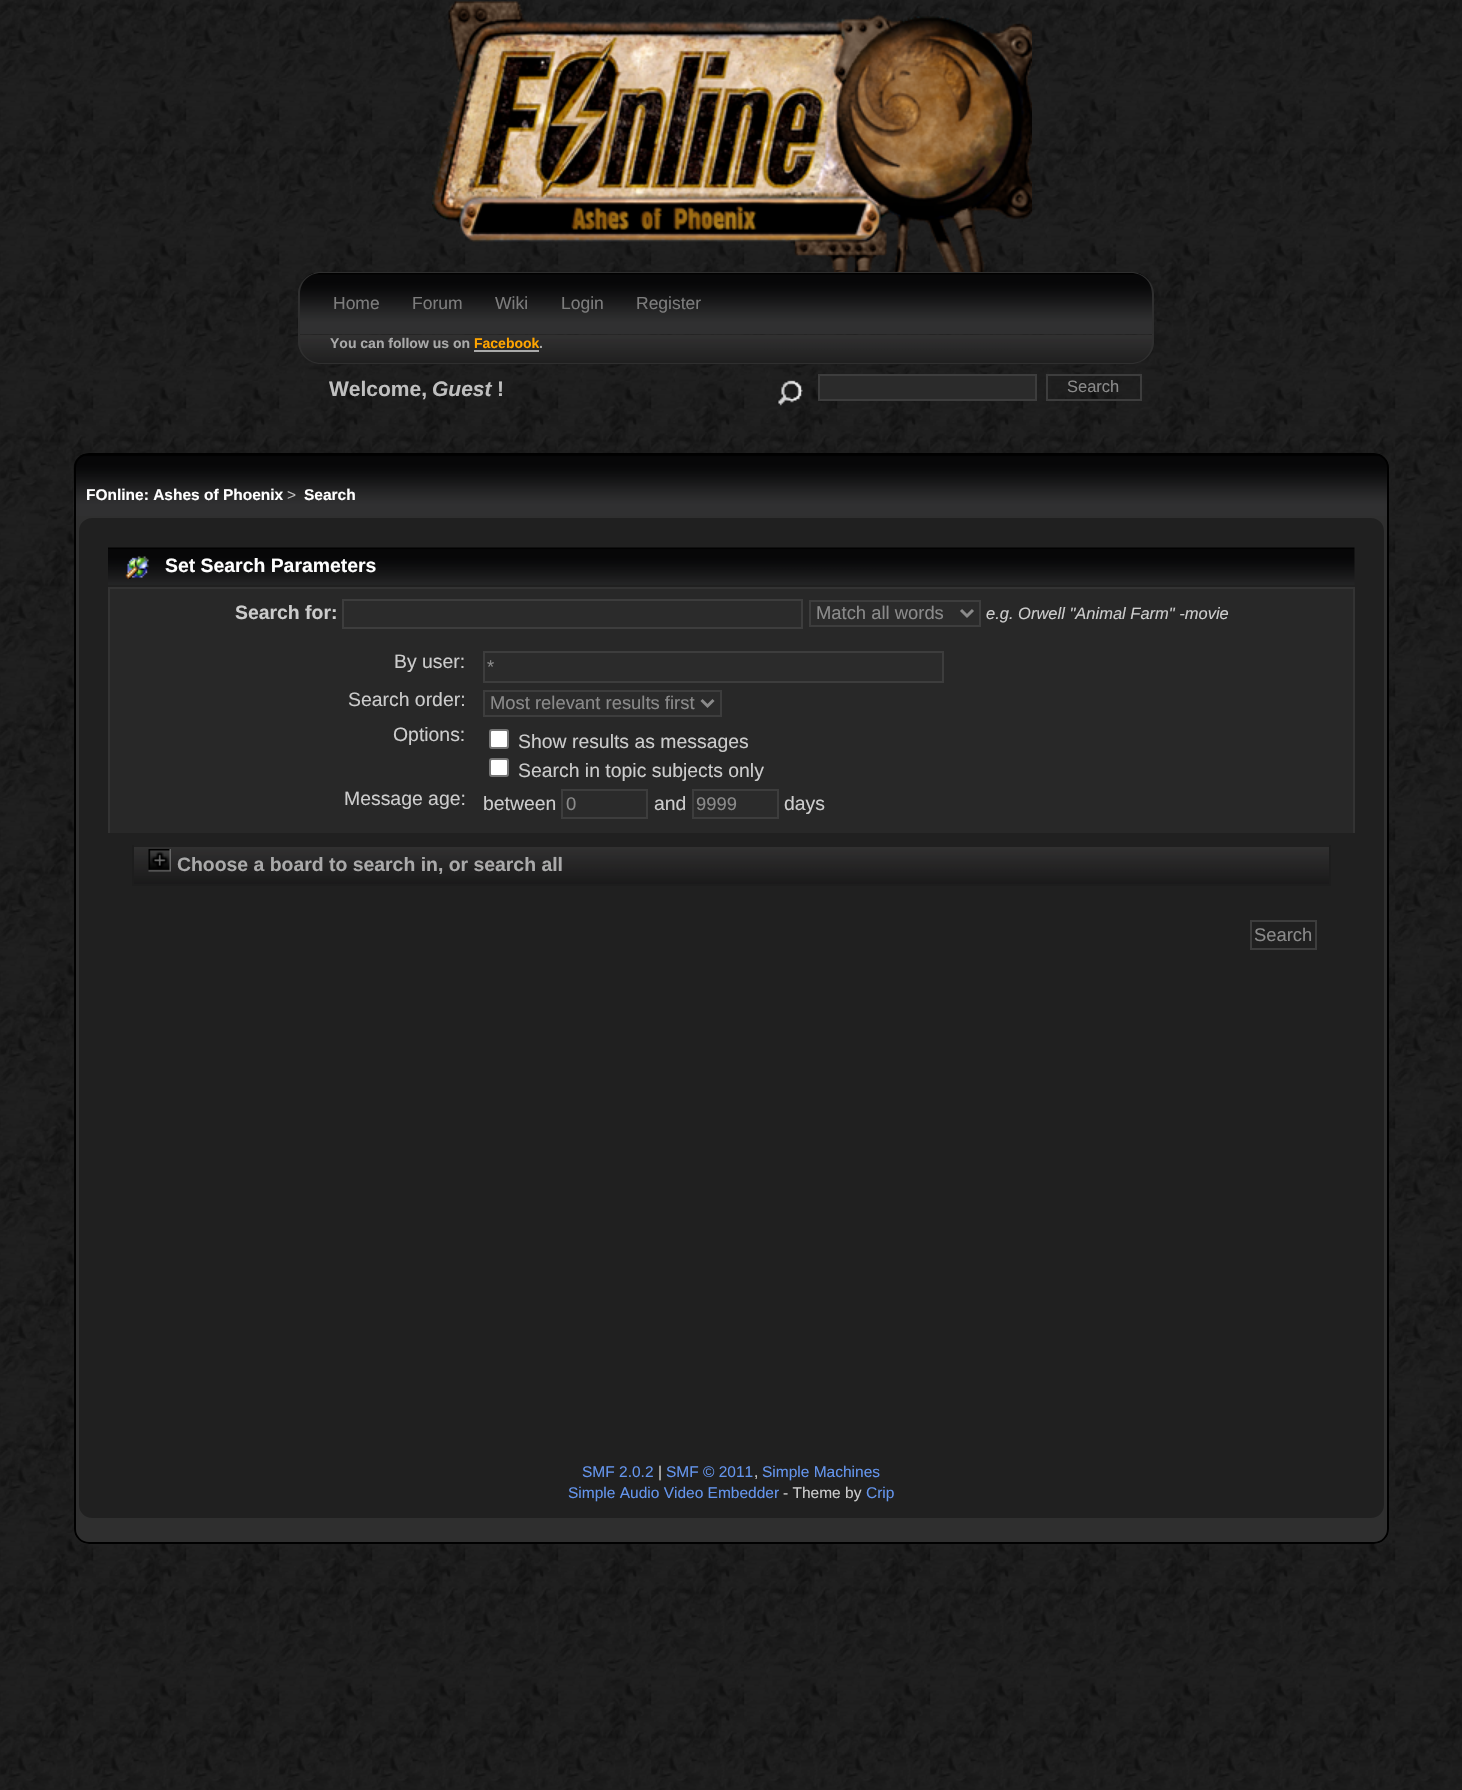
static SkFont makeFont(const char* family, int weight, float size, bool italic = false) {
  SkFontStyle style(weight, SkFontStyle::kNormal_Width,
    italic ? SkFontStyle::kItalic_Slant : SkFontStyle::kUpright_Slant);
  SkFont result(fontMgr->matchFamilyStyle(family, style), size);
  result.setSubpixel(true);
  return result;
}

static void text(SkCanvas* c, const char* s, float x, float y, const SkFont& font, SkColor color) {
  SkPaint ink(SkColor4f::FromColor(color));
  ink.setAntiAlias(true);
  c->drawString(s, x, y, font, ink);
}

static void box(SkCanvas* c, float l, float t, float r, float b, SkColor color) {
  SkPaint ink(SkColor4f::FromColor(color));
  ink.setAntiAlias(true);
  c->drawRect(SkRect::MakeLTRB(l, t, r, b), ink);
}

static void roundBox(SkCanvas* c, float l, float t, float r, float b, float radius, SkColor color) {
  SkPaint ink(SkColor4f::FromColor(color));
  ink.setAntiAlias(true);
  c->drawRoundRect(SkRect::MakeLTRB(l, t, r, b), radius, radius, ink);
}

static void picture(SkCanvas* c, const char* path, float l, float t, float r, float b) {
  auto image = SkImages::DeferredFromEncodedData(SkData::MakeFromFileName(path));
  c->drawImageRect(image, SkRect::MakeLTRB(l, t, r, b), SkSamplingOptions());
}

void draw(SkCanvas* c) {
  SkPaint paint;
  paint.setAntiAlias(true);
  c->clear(0xffffffff);
  picture(c, "img_01.png", 0, 0, 1462, 1790);
  picture(c, "img_02.png", 432, 1, 1032, 272);
  picture(c, "img_04.png", 298, 334, 1154, 364);
  paint.setColor(0xff2f2f2f);
  c->drawPath(SkPathBuilder(SkPathFillType::kEvenOdd).moveTo(298, 334).lineTo(1154, 334).lineTo(1154, 342).cubicTo(1154, 354, 1143, 364, 1131, 364).lineTo(321, 364).cubicTo(309, 364, 298, 354, 298, 342).close().moveTo(300, 334).lineTo(1152, 334).lineTo(1152, 342).cubicTo(1152, 354, 1143, 363, 1131, 363).lineTo(321, 363).cubicTo(309, 363, 300, 354, 300, 342).close().detach(), paint);
  picture(c, "img_03.png", 298, 273, 1154, 335);
  c->drawPath(SkPathBuilder(SkPathFillType::kEvenOdd).moveTo(321, 272).lineTo(1131, 272).cubicTo(1143, 272, 1154, 282, 1154, 294).lineTo(1154, 334).lineTo(298, 334).lineTo(298, 294).cubicTo(298, 282, 309, 272, 321, 272).close().moveTo(321, 273).lineTo(1131, 273).cubicTo(1143, 273, 1152, 282, 1152, 294).lineTo(1152, 334).lineTo(300, 334).lineTo(300, 294).cubicTo(300, 282, 309, 273, 321, 273).close().detach(), paint);
  SkFont face1 = makeFont("Liberation Sans", 400, 17.5f);
  text(c, "Home", 333, 309, face1, 0xff7c7c7c);
  text(c, "Forum", 412, 309, face1, 0xff7c7c7c);
  text(c, "Wiki", 495, 309, face1, 0xff7c7c7c);
  text(c, "Login", 561, 309, face1, 0xff7c7c7c);
  text(c, "Register", 636, 309, face1, 0xff7c7c7c);
  SkFont face2 = makeFont("Liberation Sans", 700, 14);
  text(c, "You can follow us on", 330, 348, face2, 0xffaaaaaa);
  text(c, "Facebook", 474, 348, face2, 0xffffa500);
  box(c, 474, 350, 539, 352, 0xffaaaaaa);
  text(c, ".", 539, 348, face2, 0xffaaaaaa);
  SkFont face3 = makeFont("Liberation Sans", 700, 21);
  text(c, "Welcome,", 329, 396, face3, 0xffbfbfbf);
  SkFont face4 = makeFont("Liberation Sans", 700, 21, true);
  text(c, "Guest", 432, 396, face4, 0xffbfbfbf);
  text(c, "!", 497, 396, face3, 0xffbfbfbf);
  picture(c, "img_05.png", 778, 380, 803, 406);
  paint.setColor(0xff2b2b2b);
  c->drawRect(SkRect::MakeLTRB(819, 375, 1036, 400), paint);
  paint.setStyle(SkPaint::kStroke_Style);
  paint.setStrokeWidth(2);
  paint.setColor(0xff3d3d3d);
  c->drawRect(SkRect::MakeLTRB(819, 375, 1036, 400), paint);
  c->drawRect(SkRect::MakeLTRB(1047, 375, 1141, 400), paint);
  SkFont face5 = makeFont("Liberation Sans", 400, 16.5f);
  text(c, "Search", 1067, 392, face5, 0xff8a8a8a);
  roundBox(c, 74, 453, 1389, 1544, 15, 0xff2f2f2f);
  picture(c, "img_06.png", 73, 454, 1389, 516);
  paint.setColor(0xff000000);
  c->drawRoundRect(SkRect::MakeLTRB(75, 454, 1388, 1543), 14, 14, paint);
  SkFont face6 = makeFont("Liberation Sans", 700, 15.5f);
  text(c, "FOnline: Ashes of Phoenix", 86, 500, face6, 0xffffffff);
  SkFont face7 = makeFont("Liberation Sans", 400, 15.5f);
  text(c, ">", 287, 500, face7, 0xffbfbfbf);
  text(c, "Search", 304, 500, face6, 0xffffffff);
  paint.setStyle(SkPaint::kFill_Style);
  paint.setColor(0xff202020);
  c->drawRoundRect(SkRect::MakeLTRB(78, 517, 1385, 1519), 14, 14, paint);
  paint.setStyle(SkPaint::kStroke_Style);
  paint.setColor(0xff2f2f2f);
  c->drawRoundRect(SkRect::MakeLTRB(78, 517, 1385, 1519), 14, 14, paint);
  picture(c, "img_07.png", 108, 547, 1355, 585);
  picture(c, "img_08.png", 125, 556, 149, 579);
  SkFont face8 = makeFont("Liberation Sans", 700, 19.4f);
  text(c, "Set Search Parameters", 165, 572, face8, 0xffffffff);
  box(c, 110, 589, 1353, 833, 0xff282828);
  box(c, 108, 587, 1355, 589, 0xff333333);
  box(c, 1353, 587, 1355, 833, 0xff333333);
  box(c, 108, 587, 110, 833, 0xff333333);
  text(c, "Search for:", 235, 619, face8, 0xffcccccc);
  paint.setStyle(SkPaint::kFill_Style);
  paint.setColor(0xff2b2b2b);
  c->drawRect(SkRect::MakeLTRB(343, 600, 802, 628), paint);
  paint.setStyle(SkPaint::kStroke_Style);
  paint.setColor(0xff3d3d3d);
  c->drawRect(SkRect::MakeLTRB(343, 600, 802, 628), paint);
  paint.setStyle(SkPaint::kFill_Style);
  paint.setColor(0xff2b2b2b);
  c->drawRect(SkRect::MakeLTRB(810, 601, 980, 626), paint);
  paint.setStyle(SkPaint::kStroke_Style);
  paint.setColor(0xff3d3d3d);
  c->drawRect(SkRect::MakeLTRB(810, 601, 980, 626), paint);
  paint.setStrokeWidth(3);
  paint.setColor(0xff8a8a8a);
  c->drawPath(SkPathBuilder().moveTo(961, 610).lineTo(967, 616).lineTo(973, 610).detach(), paint);
  SkFont face9 = makeFont("Liberation Sans", 400, 18.4f);
  text(c, "Match all words", 816, 619, face9, 0xff8a8a8a);
  SkFont face10 = makeFont("Liberation Sans", 400, 16.5f, true);
  text(c, "e.g. Orwell \"Animal Farm\" -movie", 986, 619, face10, 0xffcccccc);
  SkFont face11 = makeFont("Liberation Sans", 400, 19.4f);
  text(c, "By user:", 394, 668, face11, 0xffcccccc);
  paint.setStyle(SkPaint::kFill_Style);
  paint.setColor(0xff2b2b2b);
  c->drawRect(SkRect::MakeLTRB(484, 652, 943, 682), paint);
  paint.setStyle(SkPaint::kStroke_Style);
  paint.setStrokeWidth(2);
  paint.setColor(0xff3d3d3d);
  c->drawRect(SkRect::MakeLTRB(484, 652, 943, 682), paint);
  text(c, "*", 487, 673, face9, 0xff8a8a8a);
  text(c, "Search order:", 348, 706, face11, 0xffcccccc);
  paint.setStyle(SkPaint::kFill_Style);
  paint.setColor(0xff2b2b2b);
  c->drawRect(SkRect::MakeLTRB(484, 691, 721, 716), paint);
  paint.setStyle(SkPaint::kStroke_Style);
  paint.setColor(0xff3d3d3d);
  c->drawRect(SkRect::MakeLTRB(484, 691, 721, 716), paint);
  paint.setStrokeWidth(3);
  paint.setColor(0xff8a8a8a);
  c->drawPath(SkPathBuilder().moveTo(701.5f, 700).lineTo(707.5f, 706).lineTo(713.5f, 700).detach(), paint);
  text(c, "Most relevant results first", 490, 709, face9, 0xff8a8a8a);
  text(c, "Options:", 393, 741, face11, 0xffcccccc);
  paint.setStyle(SkPaint::kFill_Style);
  paint.setColor(0xffffffff);
  c->drawRoundRect(SkRect::MakeLTRB(490, 730, 508, 748), 2, 2, paint);
  paint.setStyle(SkPaint::kStroke_Style);
  paint.setStrokeWidth(2);
  paint.setColor(0xff767676);
  c->drawRoundRect(SkRect::MakeLTRB(490, 730, 508, 748), 2, 2, paint);
  text(c, "Show results as messages", 518, 748, face11, 0xffcccccc);
  paint.setStyle(SkPaint::kFill_Style);
  paint.setColor(0xffffffff);
  c->drawRoundRect(SkRect::MakeLTRB(490, 759, 508, 776), 2, 2, paint);
  paint.setStyle(SkPaint::kStroke_Style);
  paint.setColor(0xff767676);
  c->drawRoundRect(SkRect::MakeLTRB(490, 759, 508, 776), 2, 2, paint);
  text(c, "Search in topic subjects only", 518, 777, face11, 0xffcccccc);
  text(c, "Message age:", 344, 805, face11, 0xffcccccc);
  text(c, "between", 483, 810, face11, 0xffcccccc);
  paint.setStyle(SkPaint::kFill_Style);
  paint.setColor(0xff2b2b2b);
  c->drawRect(SkRect::MakeLTRB(562, 790, 647, 818), paint);
  paint.setStyle(SkPaint::kStroke_Style);
  paint.setColor(0xff3d3d3d);
  c->drawRect(SkRect::MakeLTRB(562, 790, 647, 818), paint);
  text(c, "0", 566, 810, face9, 0xff8a8a8a);
  text(c, "and", 654, 810, face11, 0xffcccccc);
  paint.setStyle(SkPaint::kFill_Style);
  paint.setColor(0xff2b2b2b);
  c->drawRect(SkRect::MakeLTRB(693, 790, 778, 818), paint);
  paint.setStyle(SkPaint::kStroke_Style);
  paint.setColor(0xff3d3d3d);
  c->drawRect(SkRect::MakeLTRB(693, 790, 778, 818), paint);
  text(c, "9999", 696, 810, face9, 0xff8a8a8a);
  text(c, "days", 784, 810, face11, 0xffcccccc);
  picture(c, "img_09.png", 134, 847, 1329, 884);
  box(c, 1329, 845, 1331, 885, 0xff1d1d1d);
  box(c, 132, 884, 1331, 886, 0xff1d1d1d);
  box(c, 132, 845, 134, 885, 0xff1d1d1d);
  picture(c, "img_10.png", 148, 849, 171, 872);
  text(c, "Choose a board to search in, or search all", 177, 871, face8, 0xffaaaaaa);
  c->drawRect(SkRect::MakeLTRB(1251, 921, 1316, 949), paint);
  text(c, "Search", 1254, 941, face9, 0xff8a8a8a);
  text(c, "SMF 2.0.2", 582, 1477, face7, 0xff6495ed);
  text(c, "|", 658, 1477, face7, 0xffcccccc);
  text(c, "SMF © 2011", 666, 1477, face7, 0xff6495ed);
  text(c, ",", 754, 1477, face7, 0xffcccccc);
  text(c, "Simple Machines", 762, 1477, face7, 0xff6495ed);
  text(c, "Simple Audio Video Embedder", 568, 1498, face7, 0xff6495ed);
  text(c, "- Theme by", 783, 1498, face7, 0xffcccccc);
  text(c, "Crip", 866, 1498, face7, 0xff6495ed);
}
